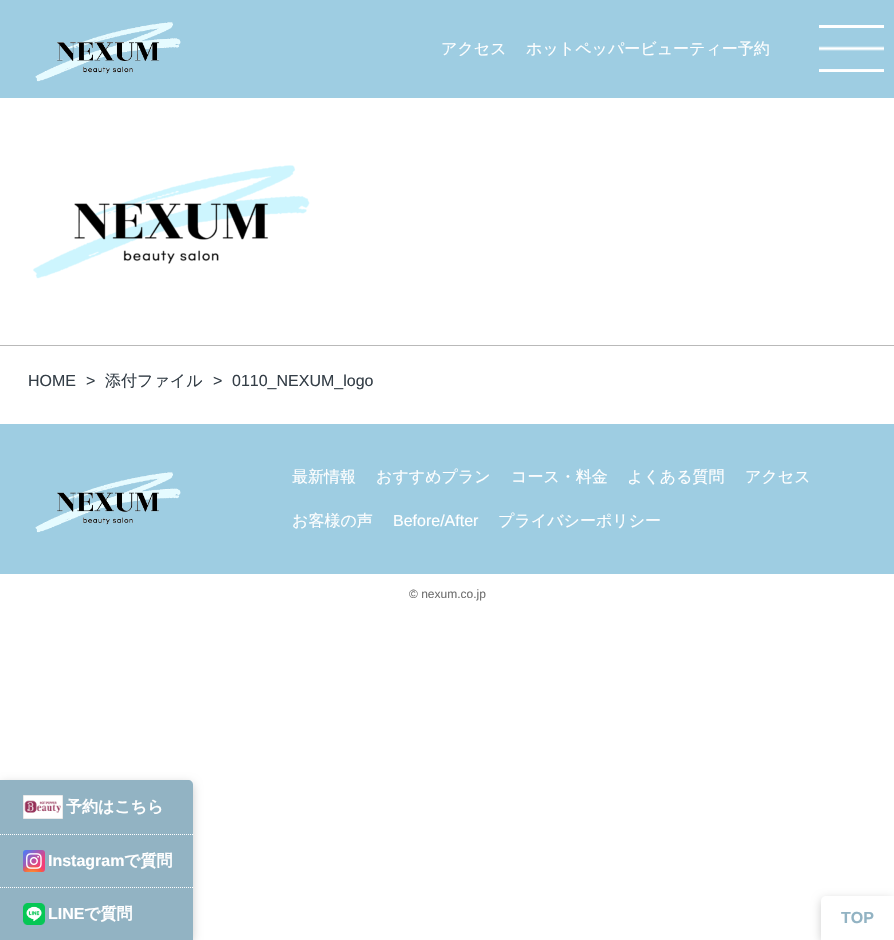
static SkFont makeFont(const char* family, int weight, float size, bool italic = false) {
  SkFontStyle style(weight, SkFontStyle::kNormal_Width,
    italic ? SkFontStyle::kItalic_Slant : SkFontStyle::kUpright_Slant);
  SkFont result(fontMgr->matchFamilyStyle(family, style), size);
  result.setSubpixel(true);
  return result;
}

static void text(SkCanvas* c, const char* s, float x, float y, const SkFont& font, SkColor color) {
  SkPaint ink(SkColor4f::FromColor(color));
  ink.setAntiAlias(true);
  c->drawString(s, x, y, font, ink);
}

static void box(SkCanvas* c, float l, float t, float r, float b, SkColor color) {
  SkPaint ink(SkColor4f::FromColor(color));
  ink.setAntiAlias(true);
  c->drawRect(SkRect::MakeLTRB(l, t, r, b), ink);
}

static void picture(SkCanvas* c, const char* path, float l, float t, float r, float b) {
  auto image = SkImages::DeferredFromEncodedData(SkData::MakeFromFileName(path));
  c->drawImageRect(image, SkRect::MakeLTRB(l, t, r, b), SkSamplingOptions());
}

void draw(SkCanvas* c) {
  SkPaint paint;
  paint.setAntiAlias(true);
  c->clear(0xffffffff);
  box(c, 0, 0, 894, 98, 0xff9ecde2);
  picture(c, "img_01.png", 35, 22, 181, 82);
  SkFont face1 = makeFont("WenQuanYi Zen Hei", 500, 16);
  text(c, "アクセス", 441, 54, face1, 0xffffffff);
  text(c, "ホットペッパービューティー予約", 526, 54, face1, 0xffffffff);
  picture(c, "img_02.png", 819, 25, 884, 72);
  picture(c, "img_03.png", 33, 165, 310, 279);
  box(c, 0, 345, 894, 346, 0xffb9b9b9);
  SkFont face2 = makeFont("Liberation Sans", 400, 16);
  text(c, "HOME", 28, 386, face2, 0xff343e47);
  text(c, ">", 86, 386, face2, 0xff343e47);
  text(c, "添付ファイル", 105, 386, face1, 0xff343e47);
  text(c, ">", 213, 386, face2, 0xff343e47);
  text(c, "0110_NEXUM_logo", 232, 386, face2, 0xff343e47);
  box(c, 0, 424, 894, 574, 0xff9ecde2);
  picture(c, "img_04.png", 35, 472, 181, 533);
  text(c, "最新情報", 292, 482, face1, 0xffffffff);
  text(c, "おすすめプラン", 376, 482, face1, 0xffffffff);
  text(c, "コース・料金", 511, 482, face1, 0xffffffff);
  text(c, "よくある質問", 627, 482, face1, 0xffffffff);
  text(c, "アクセス", 745, 482, face1, 0xffffffff);
  text(c, "お客様の声", 292, 526, face1, 0xffffffff);
  text(c, "Before/After", 393, 526, face2, 0xffffffff);
  text(c, "プライバシーポリシー", 498, 526, face1, 0xffffffff);
  SkFont face3 = makeFont("Liberation Sans", 400, 12);
  text(c, "© nexum.co.jp", 409, 598, face3, 0xff707070);
  paint.setColor(0x33000000);
  paint.setMaskFilter(SkMaskFilter::MakeBlur(kNormal_SkBlurStyle, 5));
  c->drawRoundRect(SkRect::MakeLTRB(0, 783, 193, 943), 5, 5, paint);
  paint.setMaskFilter(nullptr);
  paint.setColor(0xff92b3c3);
  c->drawPath(SkPathBuilder().moveTo(0, 780).lineTo(188, 780).cubicTo(191, 780, 193, 782, 193, 785).lineTo(193, 940).lineTo(0, 940).close().detach(), paint);
  paint.setStyle(SkPaint::kStroke_Style);
  paint.setStrokeWidth(1);
  paint.setColor(0xffffffff);
  paint.setPathEffect(SkDashPathEffect::Make({{1, 1}}, 0));
  c->drawPath(SkPathBuilder().moveTo(0, 834.5f).lineTo(193, 834.5f).detach(), paint);
  paint.setPathEffect(nullptr);
  picture(c, "img_05.png", 23, 795, 63, 819);
  SkFont face4 = makeFont("WenQuanYi Zen Hei", 700, 16);
  text(c, "予約はこちら", 66, 812, face4, 0xffffffff);
  paint.setPathEffect(SkDashPathEffect::Make({{1, 1}}, 0));
  c->drawPath(SkPathBuilder().moveTo(0, 887.5f).lineTo(193, 887.5f).detach(), paint);
  paint.setPathEffect(nullptr);
  paint.setStyle(SkPaint::kFill_Style);
  {
    const SkColor colors[] = {0xff427eff, 0xfff13f79};
    const float stops[] = {0, 0.7f};
    const SkPoint ends[] = {{23, 850}, {45, 872}};
    paint.setShader(SkGradientShader::MakeLinear(ends, colors, stops, 2, SkTileMode::kClamp));
    paint.setAlpha(255);
  }
  c->drawRoundRect(SkRect::MakeLTRB(23, 850, 45, 872), 3, 3, paint);
  {
    const SkColor colors[] = {0xffffdb2c, 0xa6ff6922, 0x00ff6922};
    const float stops[] = {0.1f, 0.55f, 0.7f};
    paint.setShader(SkGradientShader::MakeRadial({32, 880}, 23, colors, stops, 3, SkTileMode::kClamp));
    paint.setAlpha(255);
  }
  c->drawPath(SkPathBuilder().moveTo(23, 863).lineTo(45, 863).lineTo(45, 869).cubicTo(45, 870.5f, 43.5f, 872, 42, 872).lineTo(26, 872).cubicTo(24.5f, 872, 23, 870.5f, 23, 869).close().detach(), paint);
  picture(c, "img_06.png", 26, 853, 42, 869);
  SkFont face5 = makeFont("Liberation Sans", 700, 16);
  text(c, "Instagram", 48, 866, face5, 0xffffffff);
  text(c, "で質問", 124, 866, face4, 0xffffffff);
  picture(c, "img_07.png", 23, 903, 45, 925);
  text(c, "LINE", 48, 919, face5, 0xffffffff);
  text(c, "で質問", 84, 919, face4, 0xffffffff);
  paint.setShader(nullptr);
  paint.setColor(0x33000000);
  paint.setMaskFilter(SkMaskFilter::MakeBlur(kNormal_SkBlurStyle, 5));
  c->drawRoundRect(SkRect::MakeLTRB(821, 899, 894, 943), 5, 5, paint);
  paint.setMaskFilter(nullptr);
  paint.setColor(0xffffffff);
  c->drawPath(SkPathBuilder().moveTo(826, 896).lineTo(894, 896).lineTo(894, 940).lineTo(821, 940).lineTo(821, 901).cubicTo(821, 898, 823, 896, 826, 896).close().detach(), paint);
  text(c, "TOP", 841, 923, face5, 0xff92b3c3);
}
